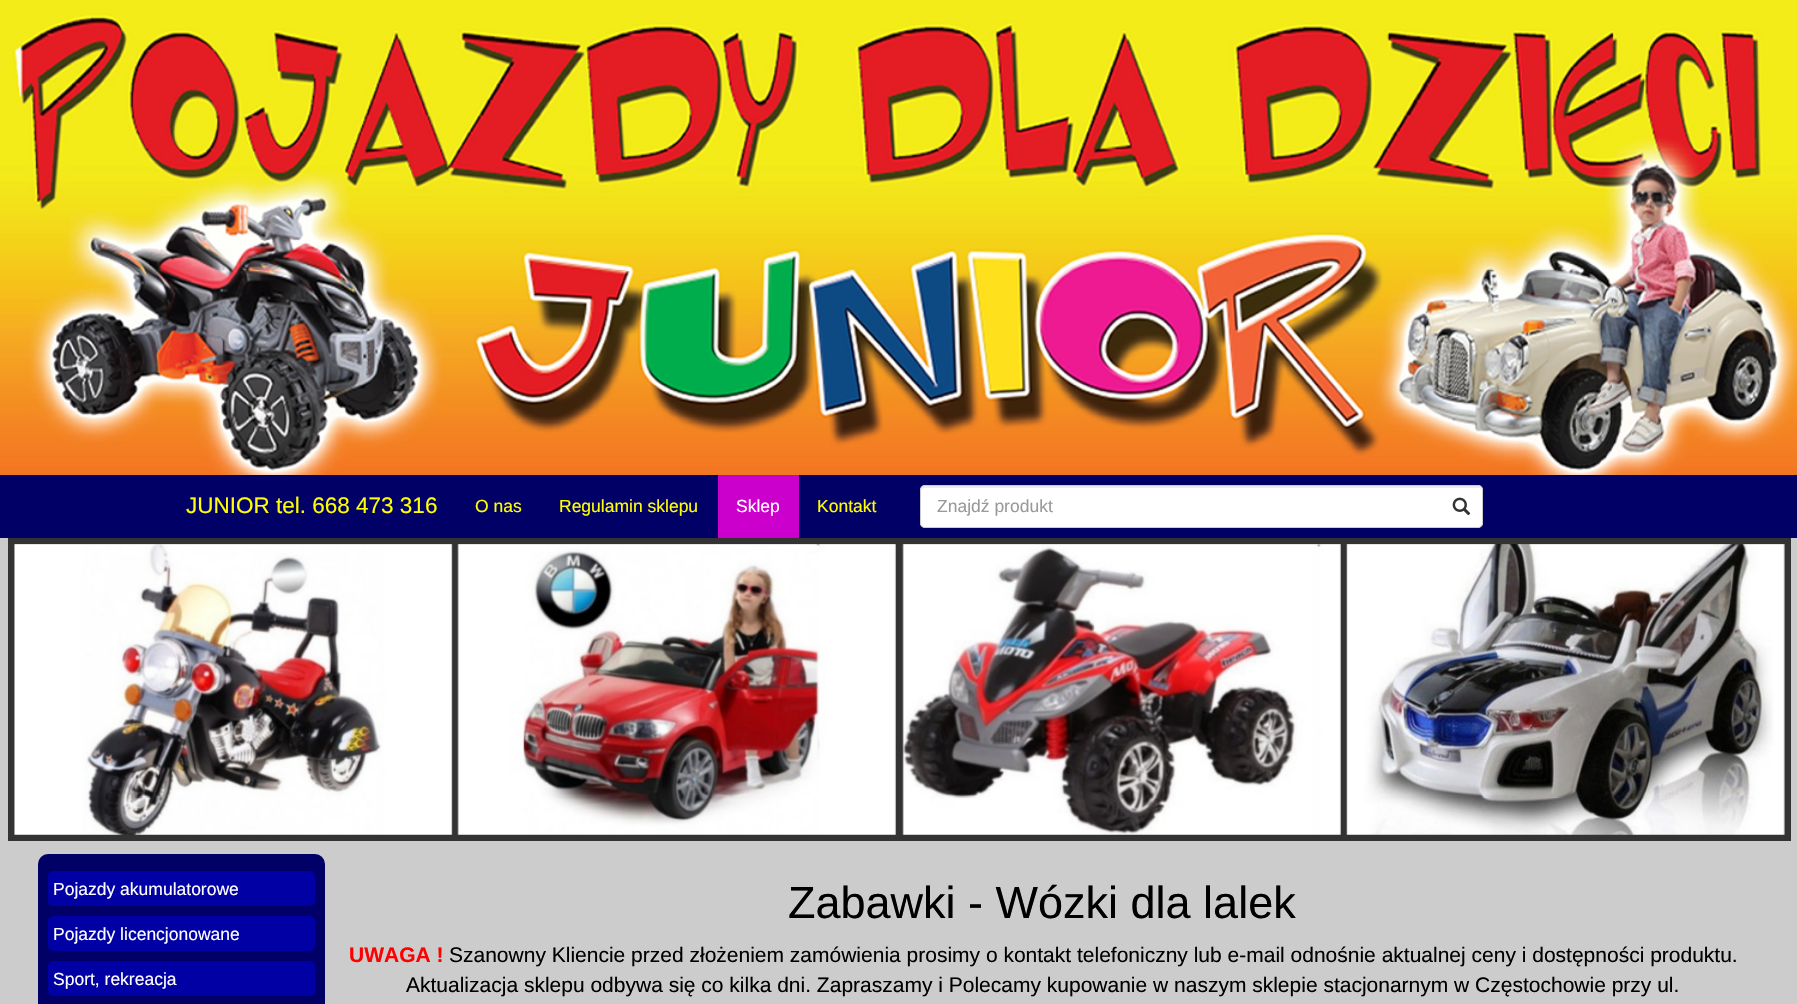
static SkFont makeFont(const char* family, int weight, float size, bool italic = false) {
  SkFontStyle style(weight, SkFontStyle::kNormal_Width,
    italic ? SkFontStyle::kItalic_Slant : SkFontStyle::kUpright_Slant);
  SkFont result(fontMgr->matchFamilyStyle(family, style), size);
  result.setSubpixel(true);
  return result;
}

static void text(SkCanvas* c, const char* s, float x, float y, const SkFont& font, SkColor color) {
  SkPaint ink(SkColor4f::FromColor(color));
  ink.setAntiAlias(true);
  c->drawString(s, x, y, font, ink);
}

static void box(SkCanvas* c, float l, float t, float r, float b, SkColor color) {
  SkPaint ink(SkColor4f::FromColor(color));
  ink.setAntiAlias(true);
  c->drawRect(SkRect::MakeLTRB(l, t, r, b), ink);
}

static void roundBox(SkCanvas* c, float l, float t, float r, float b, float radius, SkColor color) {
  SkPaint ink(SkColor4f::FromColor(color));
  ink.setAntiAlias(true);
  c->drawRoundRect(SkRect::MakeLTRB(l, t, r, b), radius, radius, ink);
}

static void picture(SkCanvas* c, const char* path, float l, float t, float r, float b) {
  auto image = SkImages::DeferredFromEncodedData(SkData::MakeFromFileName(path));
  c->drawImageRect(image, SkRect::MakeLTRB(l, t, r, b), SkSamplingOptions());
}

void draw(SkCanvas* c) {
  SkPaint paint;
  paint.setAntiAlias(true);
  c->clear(0xffcccccc);
  picture(c, "img_01.png", 0, 0, 1797, 475);
  box(c, 0, 475, 1797, 538, 0xff000066);
  SkFont face1 = makeFont("Liberation Sans", 400, 22.5f);
  text(c, "JUNIOR tel. 668 473 316", 186, 513, face1, 0xffffff00);
  SkFont face2 = makeFont("Liberation Sans", 400, 17.5f);
  text(c, "O nas", 475, 512, face2, 0xffffff00);
  text(c, "Regulamin sklepu", 559, 512, face2, 0xffffff00);
  box(c, 718, 475, 799, 538, 0xffcc00cc);
  text(c, "Sklep", 736, 512, face2, 0xffffffff);
  text(c, "Kontakt", 817, 512, face2, 0xffffff00);
  roundBox(c, 920, 485, 1483, 528, 5, 0xffffffff);
  paint.setColor(0xffececec);
  c->drawPath(SkPathBuilder().moveTo(925, 488).lineTo(1478, 488).cubicTo(1480, 488, 1481, 489, 1481, 491).cubicTo(1481, 488, 1480, 486, 1477, 486).lineTo(925, 486).cubicTo(922, 486, 921, 488, 921, 491).cubicTo(921, 489, 923, 488, 925, 488).close().detach(), paint);
  paint.setStyle(SkPaint::kStroke_Style);
  paint.setStrokeWidth(1);
  paint.setColor(0xffcccccc);
  c->drawRoundRect(SkRect::MakeLTRB(920.5f, 485.5f, 1482.5f, 527.5f), 4.5f, 4.5f, paint);
  text(c, "Znajdź produkt", 937, 512, face2, 0xff999999);
  picture(c, "img_02.png", 1452, 497, 1471, 516);
  box(c, 8, 538, 1791, 841, 0xff333333);
  picture(c, "img_03.png", 14, 544, 453, 835);
  picture(c, "img_04.png", 457, 544, 896, 835);
  picture(c, "img_05.png", 902, 544, 1341, 835);
  picture(c, "img_06.png", 1346, 544, 1785, 835);
  roundBox(c, 38, 854, 325, 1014, 10, 0xff000066);
  roundBox(c, 48, 871, 315, 906, 5, 0xff0000a4);
  text(c, "Pojazdy akumulatorowe", 53, 895, face2, 0xffffffff);
  roundBox(c, 48, 916, 315, 951, 5, 0xff0000a4);
  text(c, "Pojazdy licencjonowane", 53, 940, face2, 0xffffffff);
  roundBox(c, 48, 961, 315, 996, 5, 0xff0000a4);
  text(c, "Sport, rekreacja", 53, 985, face2, 0xffffffff);
  SkFont face3 = makeFont("Liberation Sans", 400, 45);
  text(c, "Zabawki - Wózki dla lalek", 788, 918, face3, 0xff000000);
  SkFont face4 = makeFont("Liberation Sans", 700, 21);
  text(c, "UWAGA !", 349, 962, face4, 0xffff0000);
  SkFont face5 = makeFont("Liberation Sans", 400, 21);
  text(c, "Szanowny Kliencie przed złożeniem zamówienia prosimy o kontakt telefoniczny lub e-mail odnośnie aktualnej ceny i dostępności produktu.", 449, 962, face5, 0xff000000);
  text(c, "Aktualizacja sklepu odbywa się co kilka dni. Zapraszamy i Polecamy kupowanie w naszym sklepie stacjonarnym w Częstochowie przy ul.", 406, 992, face5, 0xff000000);
}
